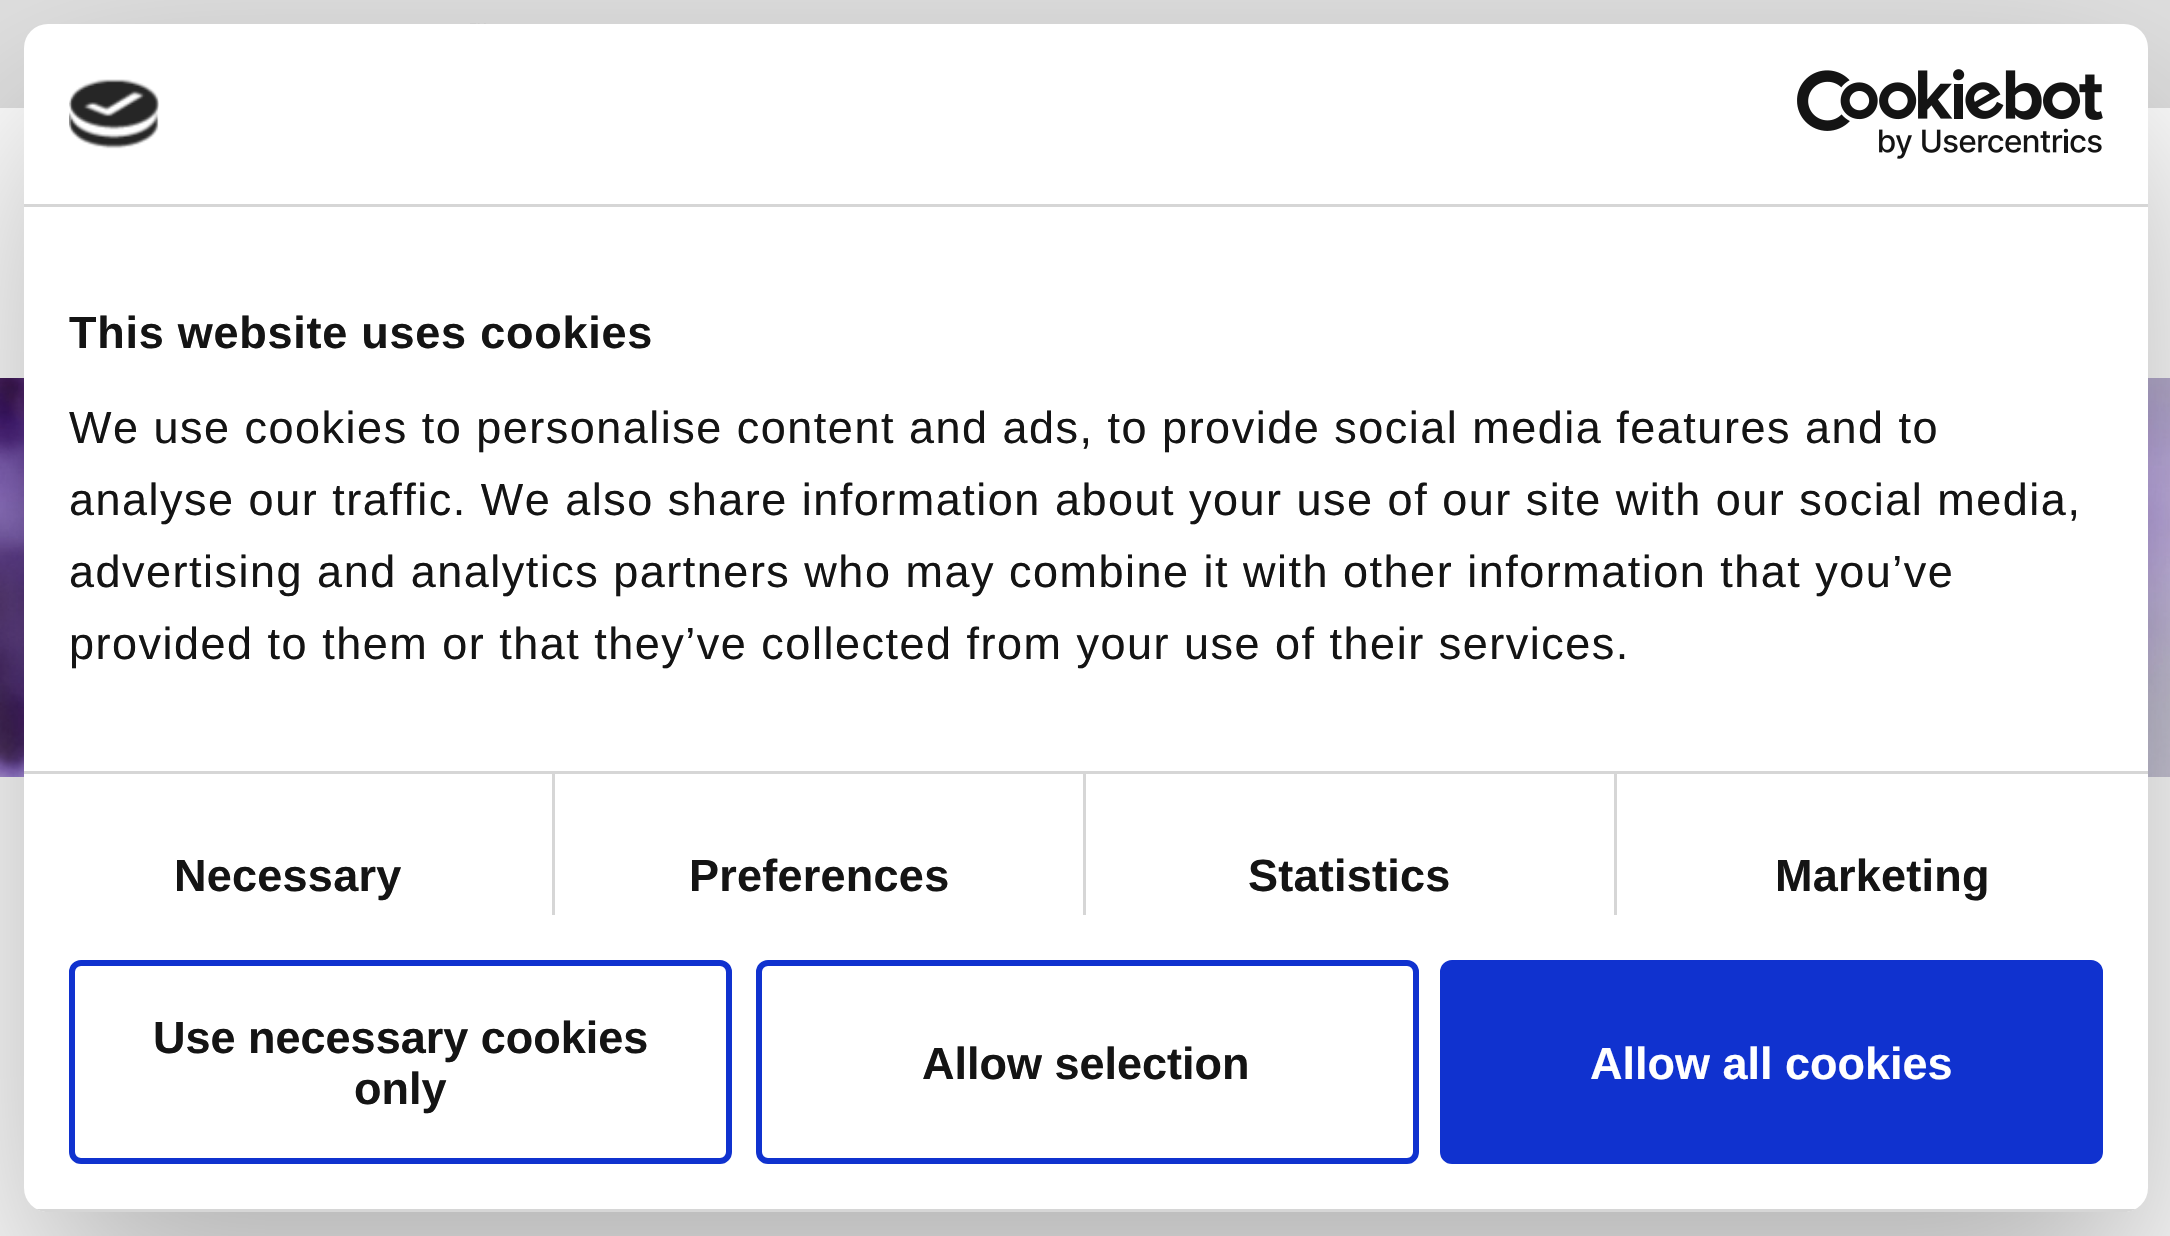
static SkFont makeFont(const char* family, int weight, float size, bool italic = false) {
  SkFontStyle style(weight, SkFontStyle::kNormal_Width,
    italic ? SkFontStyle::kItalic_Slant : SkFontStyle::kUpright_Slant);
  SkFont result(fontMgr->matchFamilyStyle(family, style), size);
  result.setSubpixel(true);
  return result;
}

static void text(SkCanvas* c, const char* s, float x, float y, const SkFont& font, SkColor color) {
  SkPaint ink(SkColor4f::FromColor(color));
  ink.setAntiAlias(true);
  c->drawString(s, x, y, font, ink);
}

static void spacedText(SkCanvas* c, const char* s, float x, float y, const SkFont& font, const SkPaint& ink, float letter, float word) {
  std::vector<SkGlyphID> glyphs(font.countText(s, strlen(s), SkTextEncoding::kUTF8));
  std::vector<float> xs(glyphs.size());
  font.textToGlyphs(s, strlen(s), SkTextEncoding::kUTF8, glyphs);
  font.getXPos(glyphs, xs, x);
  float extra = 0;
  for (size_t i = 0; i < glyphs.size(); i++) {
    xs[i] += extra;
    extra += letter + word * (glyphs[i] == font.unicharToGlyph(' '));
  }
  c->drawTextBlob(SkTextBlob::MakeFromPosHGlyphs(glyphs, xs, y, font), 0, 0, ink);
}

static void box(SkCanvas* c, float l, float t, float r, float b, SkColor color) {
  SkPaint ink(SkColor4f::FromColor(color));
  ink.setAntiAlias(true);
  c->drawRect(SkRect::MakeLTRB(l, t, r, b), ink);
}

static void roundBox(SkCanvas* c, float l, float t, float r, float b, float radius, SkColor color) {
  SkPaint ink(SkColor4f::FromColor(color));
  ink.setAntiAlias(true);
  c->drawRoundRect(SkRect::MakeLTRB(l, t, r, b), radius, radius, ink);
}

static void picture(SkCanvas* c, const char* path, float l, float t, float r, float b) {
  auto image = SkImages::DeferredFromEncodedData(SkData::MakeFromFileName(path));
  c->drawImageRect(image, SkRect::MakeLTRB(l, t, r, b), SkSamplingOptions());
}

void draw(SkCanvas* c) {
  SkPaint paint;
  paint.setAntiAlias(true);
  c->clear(0xffffffff);
  box(c, 0, 0, 2170, 108, 0xffe0e0e0);
  picture(c, "img_01.png", 470, 23, 486, 24);
  picture(c, "img_02.png", 0, 378, 2170, 777);
  paint.setColor(0x4d000000);
  paint.setMaskFilter(SkMaskFilter::MakeBlur(kNormal_SkBlurStyle, 102));
  c->drawRoundRect(SkRect::MakeLTRB(24, 120, 2148, 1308), 24, 24, paint);
  paint.setMaskFilter(nullptr);
  roundBox(c, 24, 24, 2148, 1212, 24, 0xffffffff);
  box(c, 24, 204, 2148, 207, 0xffd6d6d6);
  picture(c, "img_03.png", 69, 79, 159, 149);
  picture(c, "img_04.png", 1797, 69, 2103, 159);
  box(c, 24, 771, 2148, 774, 0xffd6d6d6);
  SkFont face1 = makeFont("Liberation Sans", 700, 45);
  paint.setColor(0xff141414);
  spacedText(c, "This website uses cookies", 69, 348, face1, paint, 0.75f, 0);
  SkFont face2 = makeFont("Liberation Sans", 400, 45);
  spacedText(c, "We use cookies to personalise content and ads, to provide social media features and to", 69, 443, face2, paint, 1.5f, 0);
  spacedText(c, "analyse our traffic. We also share information about your use of our site with our social media,", 69, 515, face2, paint, 1.5f, 0);
  spacedText(c, "advertising and analytics partners who may combine it with other information that you’ve", 69, 587, face2, paint, 1.5f, 0);
  spacedText(c, "provided to them or that they’ve collected from your use of their services.", 69, 659, face2, paint, 1.5f, 0);
  box(c, 552, 774, 555, 915, 0xffd6d6d6);
  spacedText(c, "Necessary", 174, 891, face1, paint, 0.25f, 0);
  box(c, 1083, 774, 1086, 915, 0xffd6d6d6);
  spacedText(c, "Preferences", 689, 891, face1, paint, 0.25f, 0);
  box(c, 1614, 774, 1617, 915, 0xffd6d6d6);
  spacedText(c, "Statistics", 1248, 891, face1, paint, 0.25f, 0);
  spacedText(c, "Marketing", 1775, 891, face1, paint, 0.25f, 0);
  c->save();
  c->clipPath(SkPathBuilder().moveTo(48, 24).lineTo(2124, 24).cubicTo(2137.5f, 24, 2148, 34.5f, 2148, 48).lineTo(2148, 1188).cubicTo(2148, 1201.5f, 2137.5f, 1212, 2124, 1212).lineTo(48, 1212).cubicTo(34.5f, 1212, 24, 1201.5f, 24, 1188).lineTo(24, 48).cubicTo(24, 34.5f, 34.5f, 24, 48, 24).close().detach(), true);
  box(c, 36, 1209, 2136, 1212, 0xffd6d6d6);
  c->restore();
  paint.setStyle(SkPaint::kStroke_Style);
  paint.setStrokeWidth(6);
  paint.setColor(0xff1032cf);
  c->drawRoundRect(SkRect::MakeLTRB(72, 963, 729, 1161), 9, 9, paint);
  text(c, "Use necessary cookies", 153, 1053, face1, 0xff141414);
  text(c, "only", 354, 1104, face1, 0xff141414);
  c->drawRoundRect(SkRect::MakeLTRB(759, 963, 1416, 1161), 9, 9, paint);
  text(c, "Allow selection", 922, 1079, face1, 0xff141414);
  paint.setStyle(SkPaint::kFill_Style);
  c->drawRoundRect(SkRect::MakeLTRB(1443, 963, 2100, 1161), 9, 9, paint);
  paint.setStyle(SkPaint::kStroke_Style);
  c->drawRoundRect(SkRect::MakeLTRB(1443, 963, 2100, 1161), 9, 9, paint);
  text(c, "Allow all cookies", 1590, 1079, face1, 0xffffffff);
}
